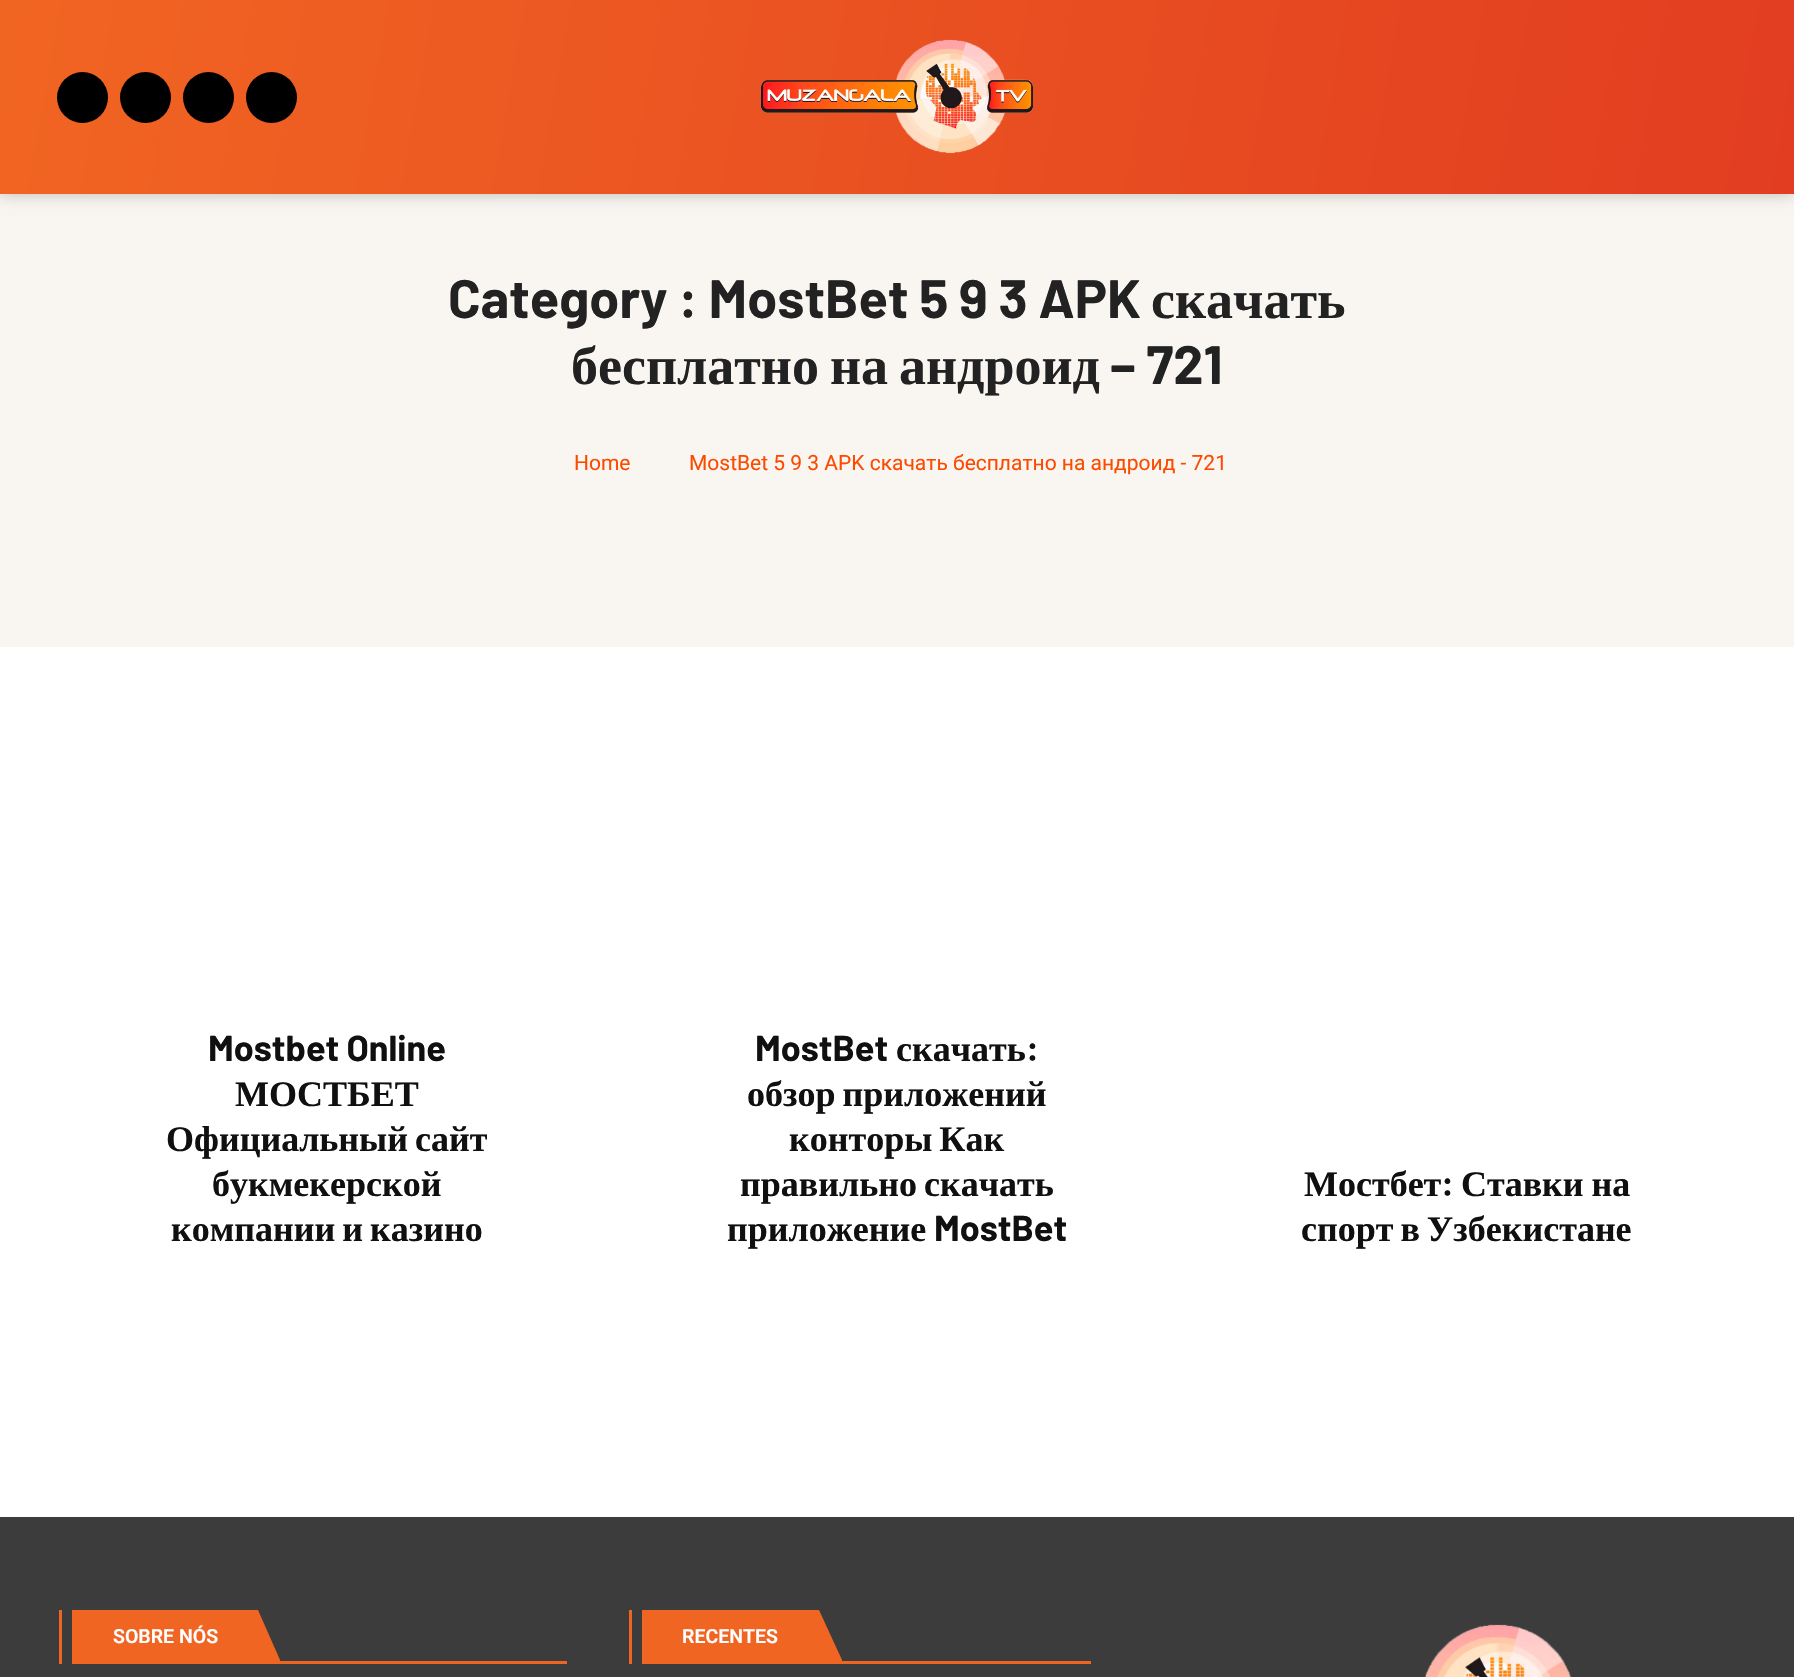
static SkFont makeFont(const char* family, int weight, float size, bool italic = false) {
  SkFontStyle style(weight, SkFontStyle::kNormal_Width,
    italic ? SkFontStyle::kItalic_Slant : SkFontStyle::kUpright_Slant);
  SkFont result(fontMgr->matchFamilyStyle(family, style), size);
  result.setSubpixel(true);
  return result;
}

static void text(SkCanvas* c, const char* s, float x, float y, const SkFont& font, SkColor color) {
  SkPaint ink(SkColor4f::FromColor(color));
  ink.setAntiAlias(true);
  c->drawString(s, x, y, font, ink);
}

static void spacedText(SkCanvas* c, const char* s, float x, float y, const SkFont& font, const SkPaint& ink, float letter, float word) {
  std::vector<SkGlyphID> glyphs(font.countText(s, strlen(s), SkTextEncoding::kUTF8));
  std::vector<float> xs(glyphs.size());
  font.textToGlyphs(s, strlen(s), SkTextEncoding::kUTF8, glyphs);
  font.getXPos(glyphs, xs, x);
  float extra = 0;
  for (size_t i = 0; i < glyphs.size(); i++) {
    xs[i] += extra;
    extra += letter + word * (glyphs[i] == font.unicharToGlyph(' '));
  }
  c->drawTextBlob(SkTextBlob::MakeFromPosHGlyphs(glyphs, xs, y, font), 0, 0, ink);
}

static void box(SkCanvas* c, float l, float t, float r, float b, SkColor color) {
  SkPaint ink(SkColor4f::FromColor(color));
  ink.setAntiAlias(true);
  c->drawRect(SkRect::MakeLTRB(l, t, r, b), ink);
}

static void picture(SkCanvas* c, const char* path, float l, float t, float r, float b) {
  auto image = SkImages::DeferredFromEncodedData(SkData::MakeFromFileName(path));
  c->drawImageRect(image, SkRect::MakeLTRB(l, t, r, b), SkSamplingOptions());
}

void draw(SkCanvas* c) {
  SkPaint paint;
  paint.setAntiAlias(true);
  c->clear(0xffffffff);
  box(c, 0, 194, 1794, 647, 0xfff9f6f1);
  paint.setColor(0x3d000000);
  paint.setMaskFilter(SkMaskFilter::MakeBlur(kNormal_SkBlurStyle, 7.5f));
  c->drawRect(SkRect::MakeLTRB(0, 0, 1794, 194), paint);
  paint.setMaskFilter(nullptr);
  {
    const SkColor colors[] = {0xfff16522, 0xffe23d21};
    const float stops[] = {0, 1};
    const SkPoint ends[] = {{11, -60}, {1783, 253}};
    paint.setShader(SkGradientShader::MakeLinear(ends, colors, stops, 2, SkTileMode::kClamp));
    paint.setAlpha(255);
  }
  c->drawRect(SkRect::MakeLTRB(0, 0, 1794, 194), paint);
  paint.setShader(nullptr);
  paint.setColor(0xff000000);
  c->drawCircle(82.5f, 97.5f, 25.5f, paint);
  c->drawCircle(145.5f, 97.5f, 25.5f, paint);
  c->drawCircle(208.5f, 97.5f, 25.5f, paint);
  c->drawCircle(271.5f, 97.5f, 25.5f, paint);
  picture(c, "img_01.png", 760, 39, 1033, 154);
  SkFont face1 = makeFont("Barlow", 700, 54);
  text(c, "Category : MostBet 5 9 3 APK", 448, 318, face1, 0xff222222);
  SkFont face2 = makeFont("Liberation Serif", 700, 54);
  text(c, "скачать", 1151, 318, face2, 0xff222222);
  text(c, "бесплатно", 571, 384, face2, 0xff222222);
  text(c, "на", 830, 384, face2, 0xff222222);
  text(c, "андроид", 899, 384, face2, 0xff222222);
  text(c, "– 721", 1110, 384, face1, 0xff222222);
  SkFont face3 = makeFont("Roboto", 400, 21);
  text(c, "Home", 574, 470, face3, 0xfffc4a00);
  text(c, "MostBet 5 9 3 APK скачать бесплатно на андроид - 721", 689, 470, face3, 0xfffc4a00);
  SkFont face4 = makeFont("Barlow", 700, 36);
  text(c, "Mostbet Online", 208, 1061, face4, 0xff101010);
  SkFont face5 = makeFont("Liberation Serif", 700, 36);
  text(c, "МОСТБЕТ", 235, 1106, face5, 0xff101010);
  paint.setColor(0xff101010);
  spacedText(c, "Официальный сайт", 166, 1151, face5, paint, 0, -2);
  text(c, "букмекерской", 212, 1196, face5, 0xff101010);
  spacedText(c, "компании и казино", 171, 1241, face5, paint, 0, -2);
  text(c, "MostBet", 755, 1061, face4, 0xff101010);
  text(c, "скачать", 896, 1061, face5, 0xff101010);
  text(c, ":", 1026, 1061, face4, 0xff101010);
  spacedText(c, "обзор приложений", 747, 1106, face5, paint, 0, -2);
  spacedText(c, "конторы Как", 789, 1151, face5, paint, 0, -2);
  spacedText(c, "правильно скачать", 740, 1196, face5, paint, 0, -2);
  text(c, "приложение", 727, 1241, face5, 0xff101010);
  text(c, "MostBet", 934, 1241, face4, 0xff101010);
  text(c, "Мостбет", 1304, 1196, face5, 0xff101010);
  text(c, ":", 1441, 1196, face4, 0xff101010);
  spacedText(c, "Ставки на", 1461, 1196, face5, paint, 0, -1);
  spacedText(c, "спорт в Узбекистане", 1301, 1241, face5, paint, 0, -2);
  box(c, 0, 1517, 1794, 1677, 0xff3c3c3c);
  box(c, 280, 1661, 567, 1664, 0xfff16522);
  box(c, 72, 1610, 258, 1664, 0xfff16522);
  box(c, 59, 1610, 62, 1664, 0xfff16522);
  SkFont face6 = makeFont("Roboto", 600, 19.5f);
  text(c, "SOBRE NÓS", 113, 1643, face6, 0xffffffff);
  paint.setColor(0xfff16522);
  c->drawPath(SkPathBuilder().moveTo(258, 1664).lineTo(258, 1610).lineTo(280, 1660).lineTo(280, 1664).close().detach(), paint);
  box(c, 842, 1661, 1091, 1664, 0xfff16522);
  box(c, 642, 1610, 819, 1664, 0xfff16522);
  box(c, 629, 1610, 632, 1664, 0xfff16522);
  text(c, "RECENTES", 682, 1643, face6, 0xffffffff);
  c->drawPath(SkPathBuilder().moveTo(819, 1664).lineTo(819, 1610).lineTo(842, 1660).lineTo(842, 1664).close().detach(), paint);
  picture(c, "img_02.png", 1424, 1624, 1572, 1677);
}
